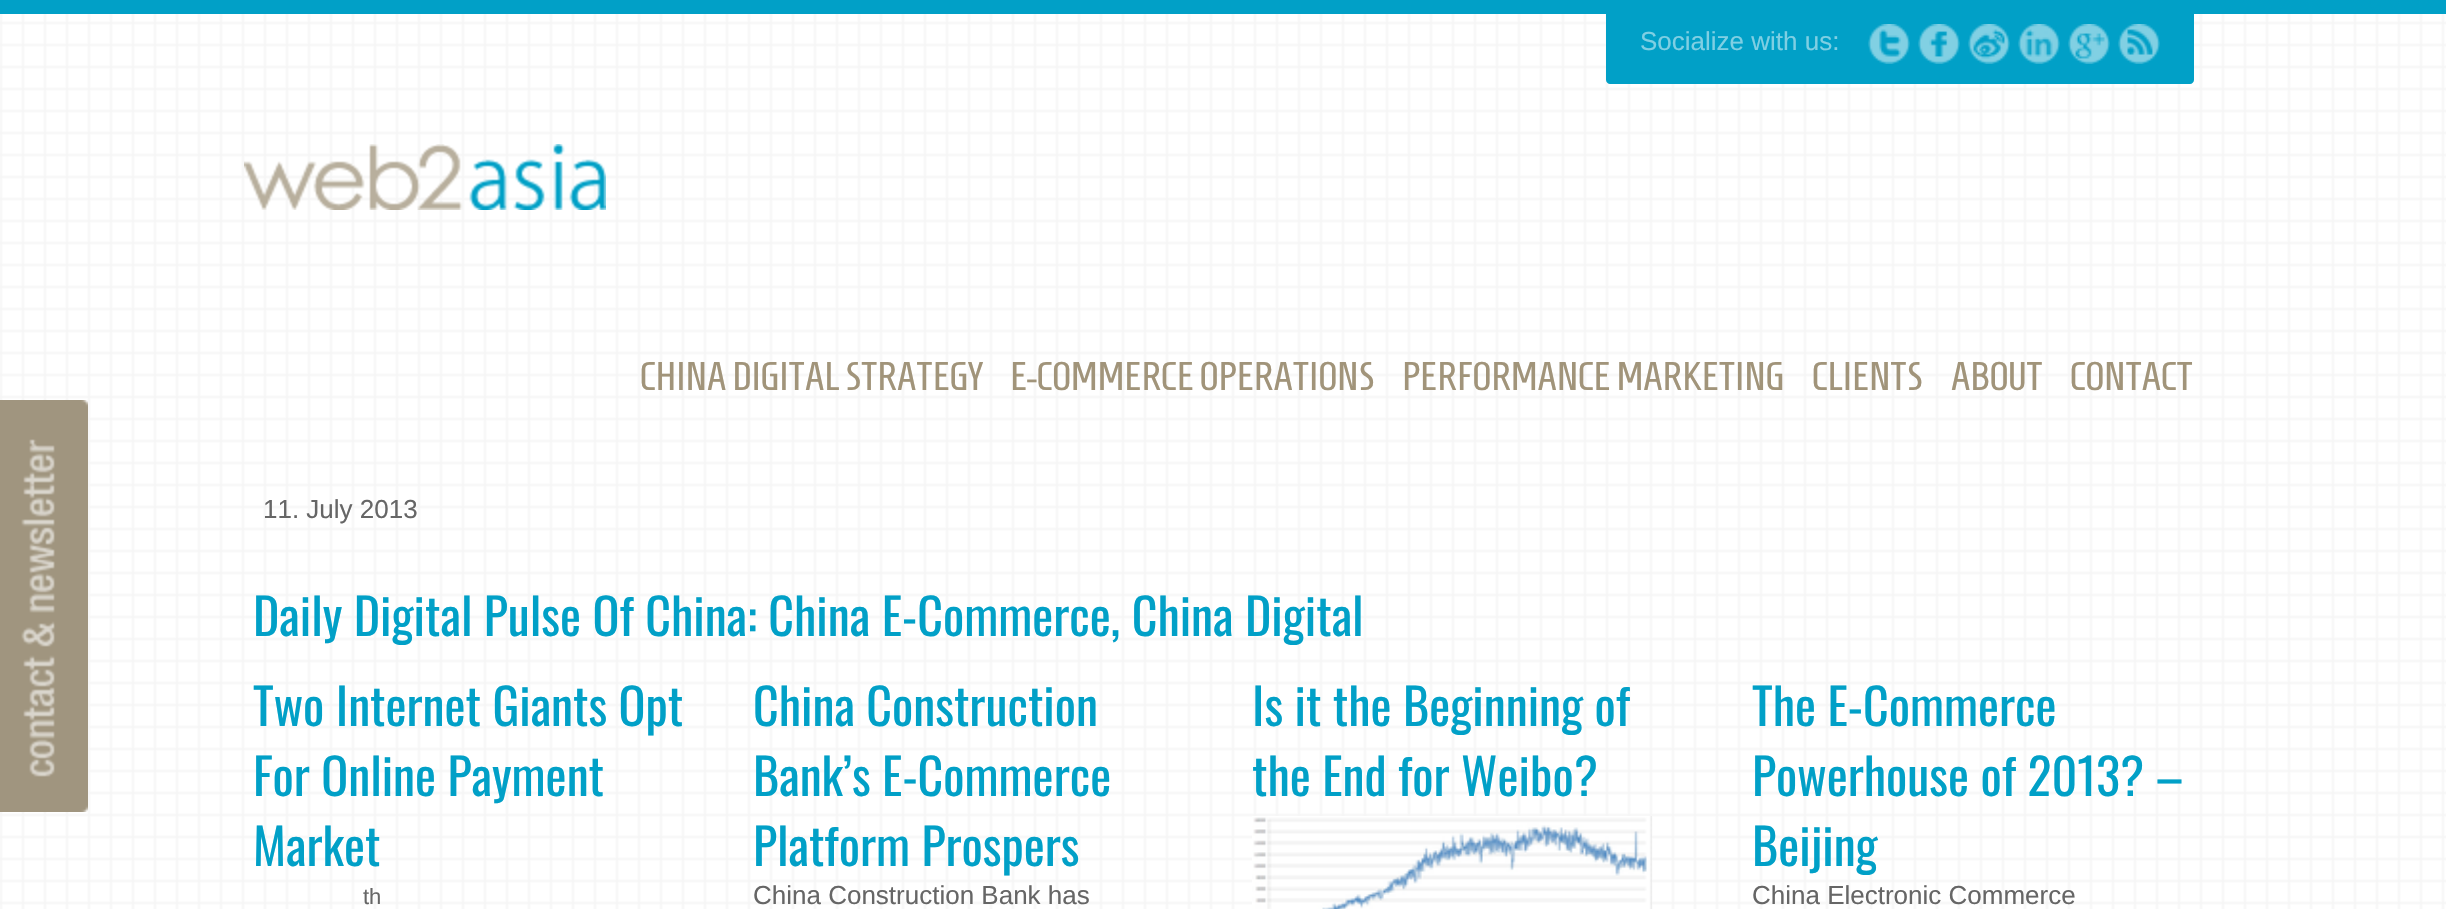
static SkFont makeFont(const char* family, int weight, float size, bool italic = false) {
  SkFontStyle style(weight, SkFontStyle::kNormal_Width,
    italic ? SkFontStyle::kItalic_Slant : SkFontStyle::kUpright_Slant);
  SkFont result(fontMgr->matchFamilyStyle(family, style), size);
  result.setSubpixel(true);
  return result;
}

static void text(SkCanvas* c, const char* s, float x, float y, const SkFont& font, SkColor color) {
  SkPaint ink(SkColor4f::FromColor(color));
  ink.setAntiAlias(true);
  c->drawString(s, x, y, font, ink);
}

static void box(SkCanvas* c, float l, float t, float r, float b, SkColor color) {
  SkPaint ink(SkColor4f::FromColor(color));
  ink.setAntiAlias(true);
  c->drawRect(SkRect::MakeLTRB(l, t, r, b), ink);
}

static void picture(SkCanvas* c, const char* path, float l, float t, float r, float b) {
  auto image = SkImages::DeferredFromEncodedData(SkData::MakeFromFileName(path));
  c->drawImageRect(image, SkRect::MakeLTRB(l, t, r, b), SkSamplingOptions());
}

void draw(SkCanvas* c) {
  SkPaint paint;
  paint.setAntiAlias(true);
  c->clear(0xffffffff);
  picture(c, "img_01.png", 0, 14, 2446, 909);
  box(c, 0, 0, 2446, 14, 0xff01a0c7);
  picture(c, "img_02.png", 0, 400, 88, 812);
  paint.setColor(0xff01a0c7);
  c->drawPath(SkPathBuilder().moveTo(1606, 14).lineTo(2194, 14).lineTo(2194, 80).cubicTo(2194, 82, 2192, 84, 2190, 84).lineTo(1610, 84).cubicTo(1608, 84, 1606, 82, 1606, 80).close().detach(), paint);
  SkFont face1 = makeFont("Liberation Sans", 400, 26);
  text(c, "Socialize with us:", 1640, 50, face1, 0xff7fcfe3);
  picture(c, "img_03.png", 1868, 24, 1910, 64);
  picture(c, "img_04.png", 1918, 24, 1960, 64);
  picture(c, "img_05.png", 1968, 24, 2010, 64);
  picture(c, "img_06.png", 2018, 24, 2060, 64);
  picture(c, "img_07.png", 2068, 24, 2110, 64);
  picture(c, "img_08.png", 2118, 24, 2160, 64);
  picture(c, "img_09.png", 244, 144, 606, 210);
  SkFont face2 = makeFont("Homenaje", 400, 40);
  text(c, "CHINA DIGITAL STRATEGY", 640, 390, face2, 0xffa1947a);
  text(c, "E-COMMERCE OPERATIONS", 1010, 390, face2, 0xffa1947a);
  text(c, "PERFORMANCE MARKETING", 1402, 390, face2, 0xffa1947a);
  text(c, "CLIENTS", 1812, 390, face2, 0xffa1947a);
  text(c, "ABOUT", 1951, 390, face2, 0xffa1947a);
  text(c, "CONTACT", 2070, 390, face2, 0xffa1947a);
  text(c, "11. July 2013", 263, 518, face1, 0xff666666);
  SkFont face3 = makeFont("Oswald", 400, 50);
  text(c, "Daily Digital Pulse Of China: China E-Commerce, China Digital", 253, 636, face3, 0xff01a0c7);
  text(c, "Two Internet Giants Opt", 253, 726, face3, 0xff01a0c7);
  text(c, "For Online Payment", 253, 796, face3, 0xff01a0c7);
  text(c, "Market", 253, 866, face3, 0xff01a0c7);
  SkFont face4 = makeFont("Liberation Sans", 400, 22);
  text(c, "th", 363, 904, face4, 0xff666666);
  text(c, "China Construction", 753, 726, face3, 0xff01a0c7);
  text(c, "Bank’s E-Commerce", 753, 796, face3, 0xff01a0c7);
  text(c, "Platform Prospers", 753, 866, face3, 0xff01a0c7);
  text(c, "China Construction Bank has", 753, 904, face1, 0xff666666);
  text(c, "Is it the Beginning of", 1252, 726, face3, 0xff01a0c7);
  text(c, "the End for Weibo?", 1252, 796, face3, 0xff01a0c7);
  picture(c, "img_10.png", 1252, 816, 1652, 909);
  text(c, "The E-Commerce", 1752, 726, face3, 0xff01a0c7);
  text(c, "Powerhouse of 2013? –", 1752, 796, face3, 0xff01a0c7);
  text(c, "Beijing", 1752, 866, face3, 0xff01a0c7);
  text(c, "China Electronic Commerce", 1752, 904, face1, 0xff666666);
}
